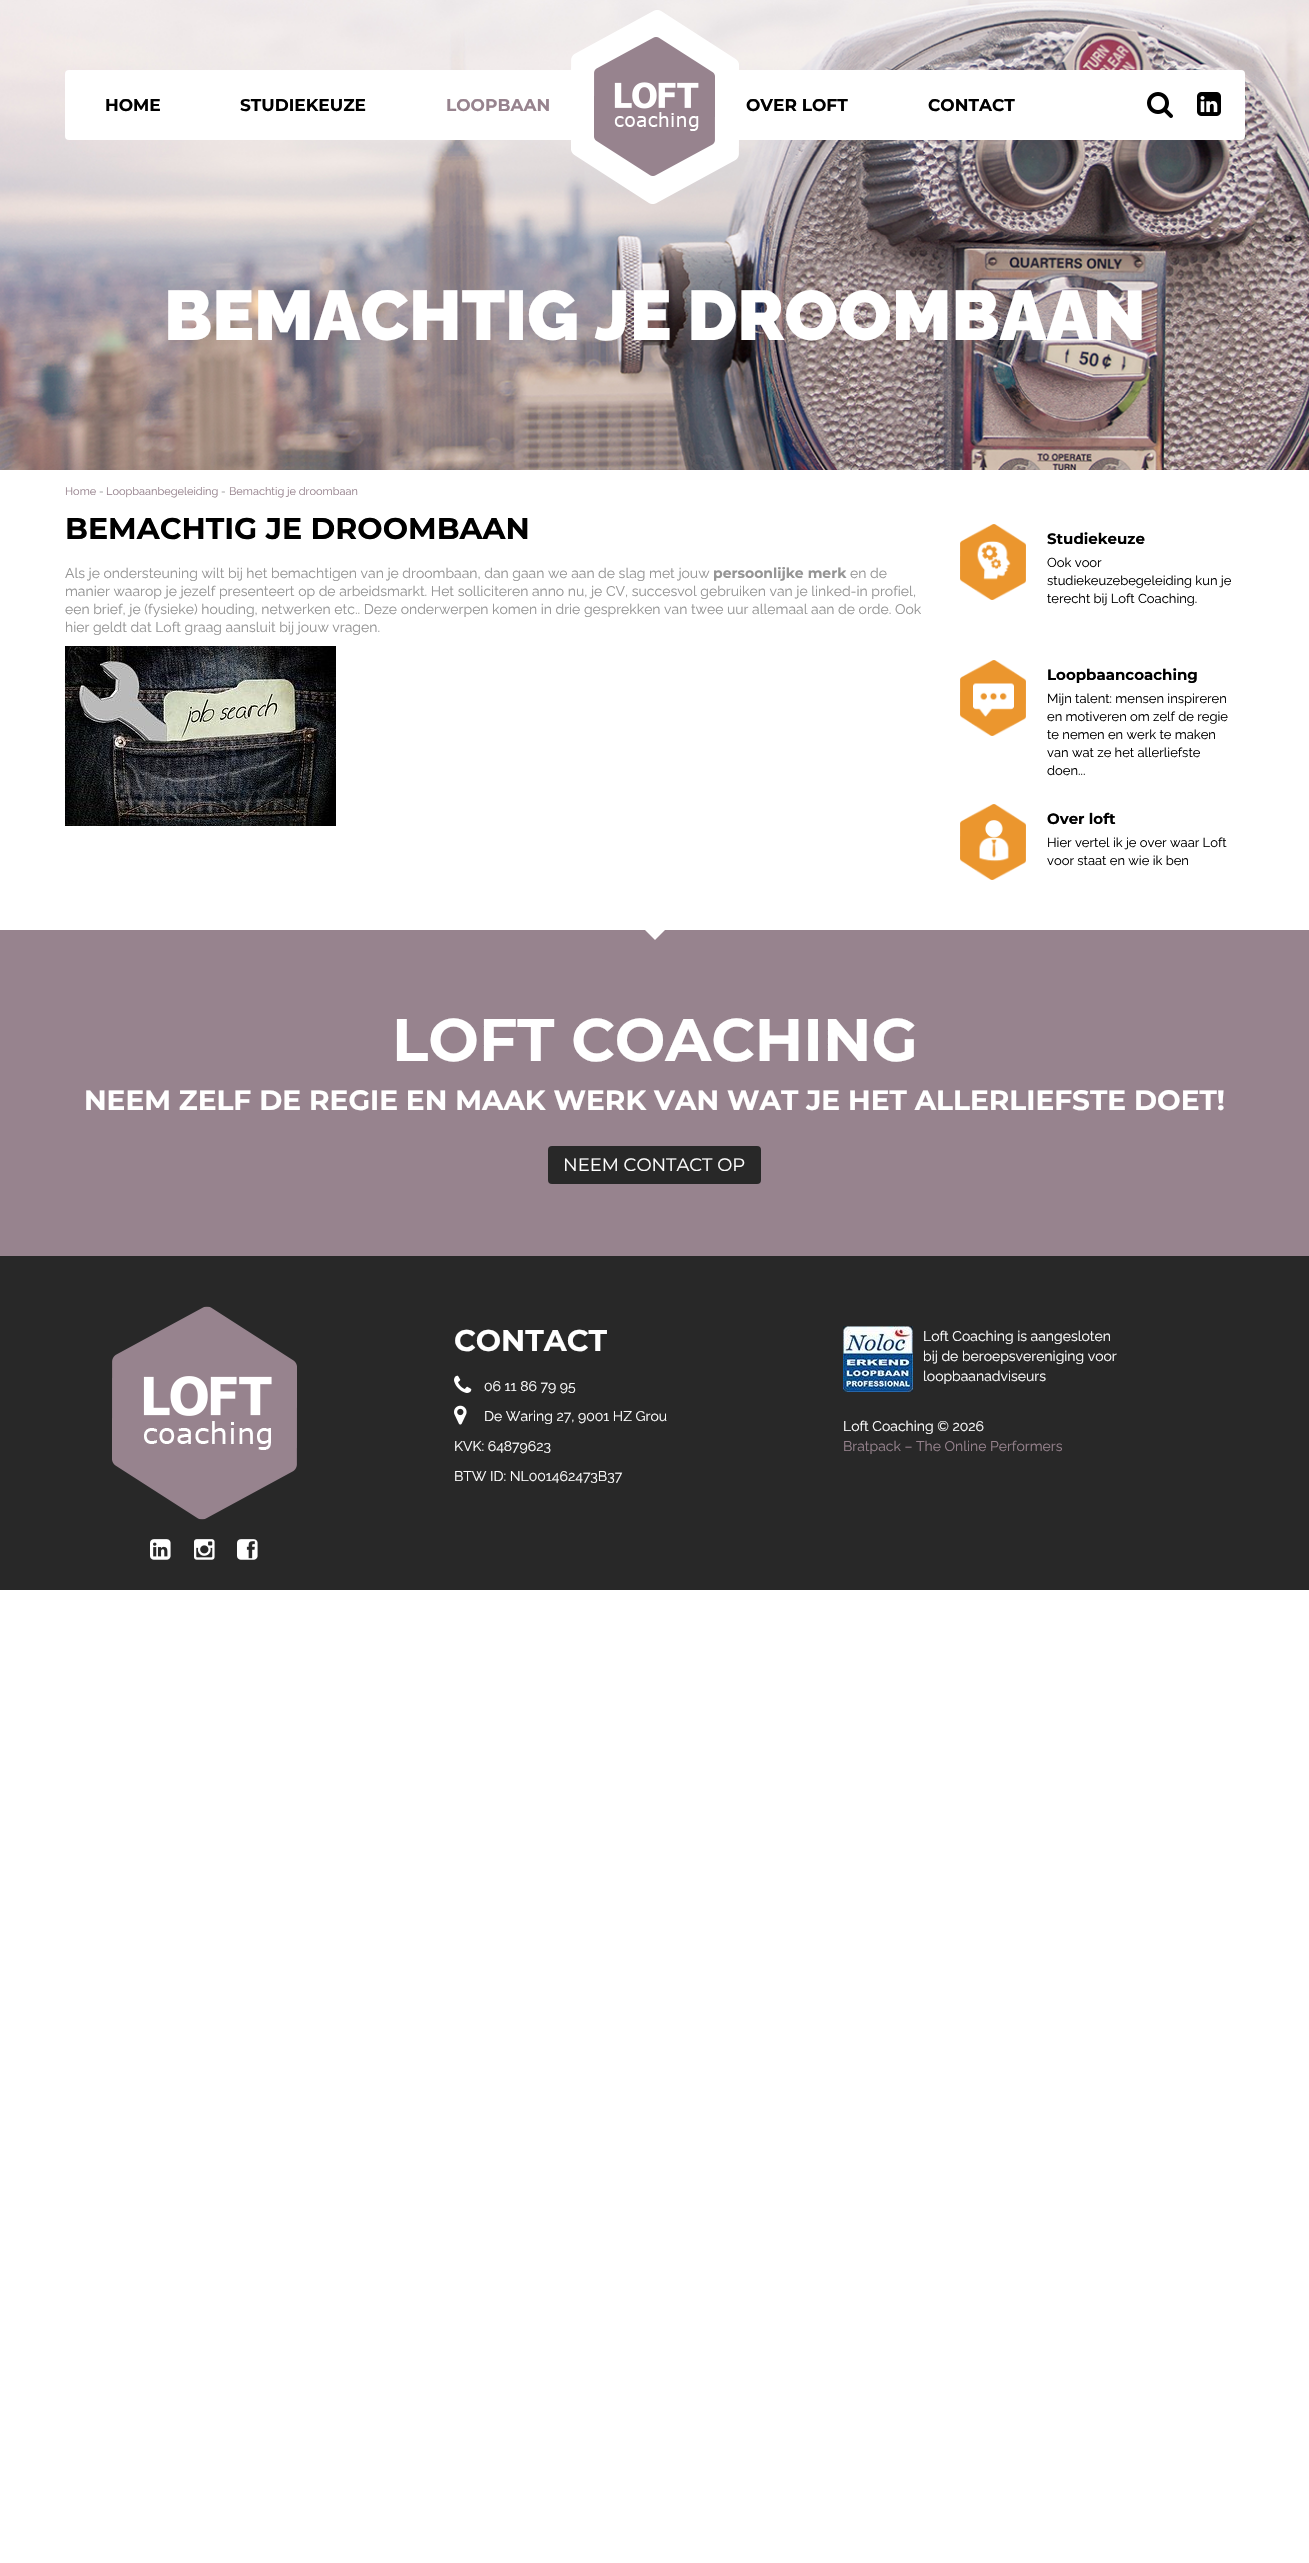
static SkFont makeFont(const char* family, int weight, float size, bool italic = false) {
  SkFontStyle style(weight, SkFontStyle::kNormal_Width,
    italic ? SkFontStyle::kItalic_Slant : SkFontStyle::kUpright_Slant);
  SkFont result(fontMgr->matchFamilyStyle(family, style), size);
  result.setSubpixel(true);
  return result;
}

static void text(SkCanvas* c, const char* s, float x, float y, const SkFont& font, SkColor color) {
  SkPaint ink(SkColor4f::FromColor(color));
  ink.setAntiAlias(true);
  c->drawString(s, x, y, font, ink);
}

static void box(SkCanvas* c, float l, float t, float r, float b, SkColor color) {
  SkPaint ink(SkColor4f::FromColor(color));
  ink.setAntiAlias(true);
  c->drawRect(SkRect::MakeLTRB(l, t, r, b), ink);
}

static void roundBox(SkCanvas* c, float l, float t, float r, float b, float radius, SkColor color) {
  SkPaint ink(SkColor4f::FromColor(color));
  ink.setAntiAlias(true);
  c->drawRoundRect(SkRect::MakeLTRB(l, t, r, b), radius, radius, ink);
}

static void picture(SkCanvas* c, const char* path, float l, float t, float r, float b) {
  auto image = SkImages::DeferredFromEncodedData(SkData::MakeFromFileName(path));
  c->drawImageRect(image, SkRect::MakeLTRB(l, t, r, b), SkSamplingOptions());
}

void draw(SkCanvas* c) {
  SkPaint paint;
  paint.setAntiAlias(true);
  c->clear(0xffffffff);
  picture(c, "img_04.png", 0, 0, 1309, 470);
  roundBox(c, 65, 70, 1245, 140, 4, 0xffffffff);
  SkFont face1 = makeFont("Montserrat", 700, 17);
  text(c, "HOME", 105, 111, face1, 0xff000000);
  text(c, "STUDIEKEUZE", 240, 111, face1, 0xff000000);
  text(c, "LOOPBAAN", 446, 111, face1, 0xff97838e);
  picture(c, "img_01.png", 571, 10, 739, 204);
  text(c, "OVER LOFT", 746, 111, face1, 0xff000000);
  text(c, "CONTACT", 928, 111, face1, 0xff000000);
  picture(c, "img_02.png", 1147, 92, 1173, 118);
  picture(c, "img_03.png", 1197, 92, 1221, 116);
  SkFont face2 = makeFont("Raleway", 900, 70);
  text(c, "BEMACHTIG JE DROOMBAAN", 164, 340, face2, 0xffffffff);
  SkFont face3 = makeFont("Raleway", 400, 11);
  text(c, "Home", 65, 495, face3, 0xff97838e);
  text(c, "-", 99, 495, face3, 0xff959595);
  text(c, "Loopbaanbegeleiding", 106, 495, face3, 0xff97838e);
  text(c, "-", 221, 495, face3, 0xff959595);
  text(c, "Bemachtig je droombaan", 229, 495, face3, 0xff97838e);
  SkFont face4 = makeFont("Montserrat", 700, 30);
  text(c, "BEMACHTIG JE DROOMBAAN", 65, 539, face4, 0xff000000);
  SkFont face5 = makeFont("Raleway", 400, 14);
  text(c, "Als je ondersteuning wilt bij het bemachtigen van je droombaan, dan gaan we aan de slag met jouw", 65, 578, face5, 0xff959595);
  SkFont face6 = makeFont("Montserrat", 700, 14);
  text(c, "persoonlijke merk", 713, 578, face6, 0xff959595);
  text(c, "en de", 850, 578, face5, 0xff959595);
  text(c, "manier waarop je jezelf presenteert op de arbeidsmarkt. Het solliciteren anno nu, je CV, succesvol gebruiken van je linked-in profiel,", 65, 596, face5, 0xff959595);
  text(c, "een brief, je (fysieke) houding, netwerken etc.. Deze onderwerpen komen in drie gesprekken van twee uur allemaal aan de orde. Ook", 65, 614, face5, 0xff959595);
  text(c, "hier geldt dat Loft graag aansluit bij jouw vragen.", 65, 632, face5, 0xff959595);
  picture(c, "img_05.png", 65, 646, 336, 826);
  picture(c, "img_06.png", 960, 524, 1026, 600);
  SkFont face7 = makeFont("Montserrat", 700, 15);
  text(c, "Studiekeuze", 1047, 544, face7, 0xff000000);
  SkFont face8 = makeFont("Raleway", 400, 13);
  text(c, "Ook voor", 1047, 567, face8, 0xff000000);
  text(c, "studiekeuzebegeleiding kun je", 1047, 585, face8, 0xff000000);
  text(c, "terecht bij Loft Coaching.", 1047, 603, face8, 0xff000000);
  picture(c, "img_07.png", 960, 660, 1026, 736);
  text(c, "Loopbaancoaching", 1047, 680, face7, 0xff000000);
  text(c, "Mijn talent: mensen inspireren", 1047, 703, face8, 0xff000000);
  text(c, "en motiveren om zelf de regie", 1047, 721, face8, 0xff000000);
  text(c, "te nemen en werk te maken", 1047, 739, face8, 0xff000000);
  text(c, "van wat ze het allerliefste", 1047, 757, face8, 0xff000000);
  text(c, "doen...", 1047, 775, face8, 0xff000000);
  picture(c, "img_08.png", 960, 804, 1026, 880);
  text(c, "Over loft", 1047, 824, face7, 0xff000000);
  text(c, "Hier vertel ik je over waar Loft", 1047, 847, face8, 0xff000000);
  text(c, "voor staat en wie ik ben", 1047, 865, face8, 0xff000000);
  box(c, 0, 930, 1309, 1256, 0xff97838e);
  paint.setColor(0xffffffff);
  c->drawPath(SkPathBuilder().moveTo(645, 930).lineTo(665, 930).lineTo(655, 940).close().detach(), paint);
  SkFont face9 = makeFont("Montserrat", 700, 60);
  text(c, "LOFT COACHING", 392, 1061, face9, 0xffffffff);
  SkFont face10 = makeFont("Montserrat", 700, 28);
  text(c, "NEEM ZELF DE REGIE EN MAAK WERK VAN WAT JE HET ALLERLIEFSTE DOET!", 84, 1110, face10, 0xffffffff);
  roundBox(c, 548, 1146, 761, 1184, 4, 0xff282828);
  SkFont face11 = makeFont("Montserrat", 400, 18);
  text(c, "NEEM CONTACT OP", 563, 1171, face11, 0xffffffff);
  box(c, 0, 1256, 1309, 1590, 0xff282828);
  picture(c, "img_09.png", 112, 1306, 297, 1520);
  picture(c, "img_10.png", 150, 1539, 171, 1560);
  picture(c, "img_11.png", 194, 1539, 215, 1560);
  picture(c, "img_12.png", 237, 1539, 258, 1560);
  text(c, "CONTACT", 454, 1351, face4, 0xffffffff);
  picture(c, "img_13.png", 454, 1375, 472, 1393);
  text(c, "06 11 86 79 95", 484, 1391, face5, 0xffffffff);
  picture(c, "img_14.png", 454, 1405, 467, 1425);
  text(c, "De Waring 27, 9001 HZ Grou", 484, 1421, face5, 0xffffffff);
  text(c, "KVK: 64879623", 454, 1451, face5, 0xffffffff);
  text(c, "BTW ID: NL001462473B37", 454, 1481, face5, 0xffffffff);
  picture(c, "img_15.png", 843, 1326, 913, 1392);
  text(c, "Loft Coaching is aangesloten", 923, 1341, face5, 0xffffffff);
  text(c, "bij de beroepsvereniging voor", 923, 1361, face5, 0xffffffff);
  text(c, "loopbaanadviseurs", 923, 1381, face5, 0xffffffff);
  text(c, "Loft Coaching © 2026", 843, 1431, face5, 0xffffffff);
  text(c, "Bratpack – The Online Performers", 843, 1451, face5, 0xff97838e);
}
